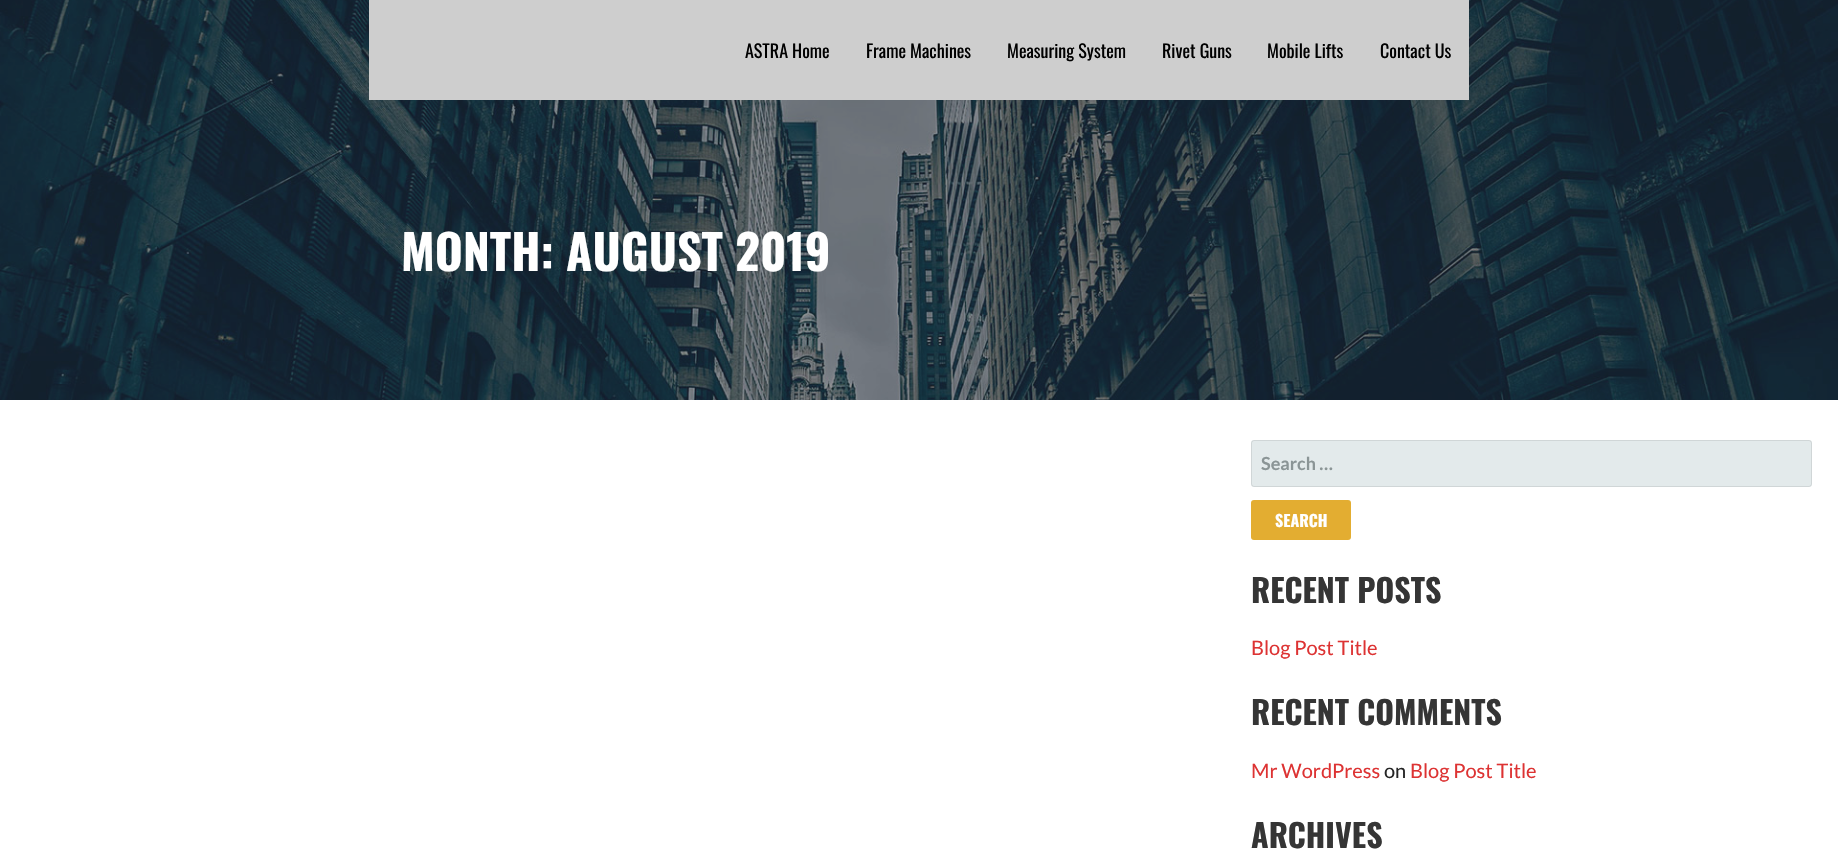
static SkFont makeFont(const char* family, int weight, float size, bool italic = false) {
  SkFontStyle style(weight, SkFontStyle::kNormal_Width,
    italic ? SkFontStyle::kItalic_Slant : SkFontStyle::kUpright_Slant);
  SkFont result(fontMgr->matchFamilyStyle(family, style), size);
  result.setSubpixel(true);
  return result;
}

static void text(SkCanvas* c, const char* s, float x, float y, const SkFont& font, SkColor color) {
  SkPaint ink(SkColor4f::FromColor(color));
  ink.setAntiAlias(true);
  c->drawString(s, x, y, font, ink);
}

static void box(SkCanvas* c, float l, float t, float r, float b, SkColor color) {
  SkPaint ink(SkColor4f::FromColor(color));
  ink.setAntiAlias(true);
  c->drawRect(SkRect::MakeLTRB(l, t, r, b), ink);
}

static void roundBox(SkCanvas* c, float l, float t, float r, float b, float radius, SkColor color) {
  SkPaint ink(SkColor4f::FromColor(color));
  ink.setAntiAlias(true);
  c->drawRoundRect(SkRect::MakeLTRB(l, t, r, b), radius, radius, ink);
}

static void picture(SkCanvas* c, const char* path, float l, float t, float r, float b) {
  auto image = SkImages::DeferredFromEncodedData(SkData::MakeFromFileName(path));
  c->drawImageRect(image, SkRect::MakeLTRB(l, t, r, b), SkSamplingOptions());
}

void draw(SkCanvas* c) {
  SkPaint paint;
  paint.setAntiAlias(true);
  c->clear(0xffffffff);
  picture(c, "img_01.png", 0, 0, 1838, 400);
  box(c, 369, 0, 1469, 100, 0xffcecece);
  SkFont face1 = makeFont("Oswald", 400, 18);
  text(c, "ASTRA Home", 745, 58, face1, 0xff000000);
  text(c, "Frame Machines", 866, 58, face1, 0xff000000);
  text(c, "Measuring System", 1007, 58, face1, 0xff000000);
  text(c, "Rivet Guns", 1162, 58, face1, 0xff000000);
  text(c, "Mobile Lifts", 1267, 58, face1, 0xff000000);
  text(c, "Contact Us", 1380, 58, face1, 0xff000000);
  SkFont face2 = makeFont("Oswald", 700, 48);
  text(c, "MONTH: AUGUST 2019", 401, 271, face2, 0xffffffff);
  roundBox(c, 1251, 440, 1812, 487, 3, 0xffe3eaeb);
  paint.setStyle(SkPaint::kStroke_Style);
  paint.setStrokeWidth(1);
  paint.setColor(0x1a252525);
  c->drawRoundRect(SkRect::MakeLTRB(1251.5f, 440.5f, 1811.5f, 486.5f), 2.5f, 2.5f, paint);
  SkFont face3 = makeFont("Lato", 700, 18);
  text(c, "Search …", 1261, 470, face3, 0xff8b9596);
  roundBox(c, 1251, 500, 1351, 540, 3, 0xffe3ad31);
  SkFont face4 = makeFont("Oswald", 700, 16);
  text(c, "SEARCH", 1275, 527, face4, 0xffffffff);
  SkFont face5 = makeFont("Oswald", 700, 32);
  text(c, "RECENT POSTS", 1251, 603, face5, 0xff353535);
  SkFont face6 = makeFont("Lato", 400, 20);
  text(c, "Blog Post Title", 1251, 655, face6, 0xffdd3333);
  text(c, "RECENT COMMENTS", 1251, 725, face5, 0xff353535);
  text(c, "Mr WordPress", 1251, 778, face6, 0xffdd3333);
  text(c, "on", 1384, 778, face6, 0xff252525);
  text(c, "Blog Post Title", 1410, 778, face6, 0xffdd3333);
  text(c, "ARCHIVES", 1251, 848, face5, 0xff353535);
}
